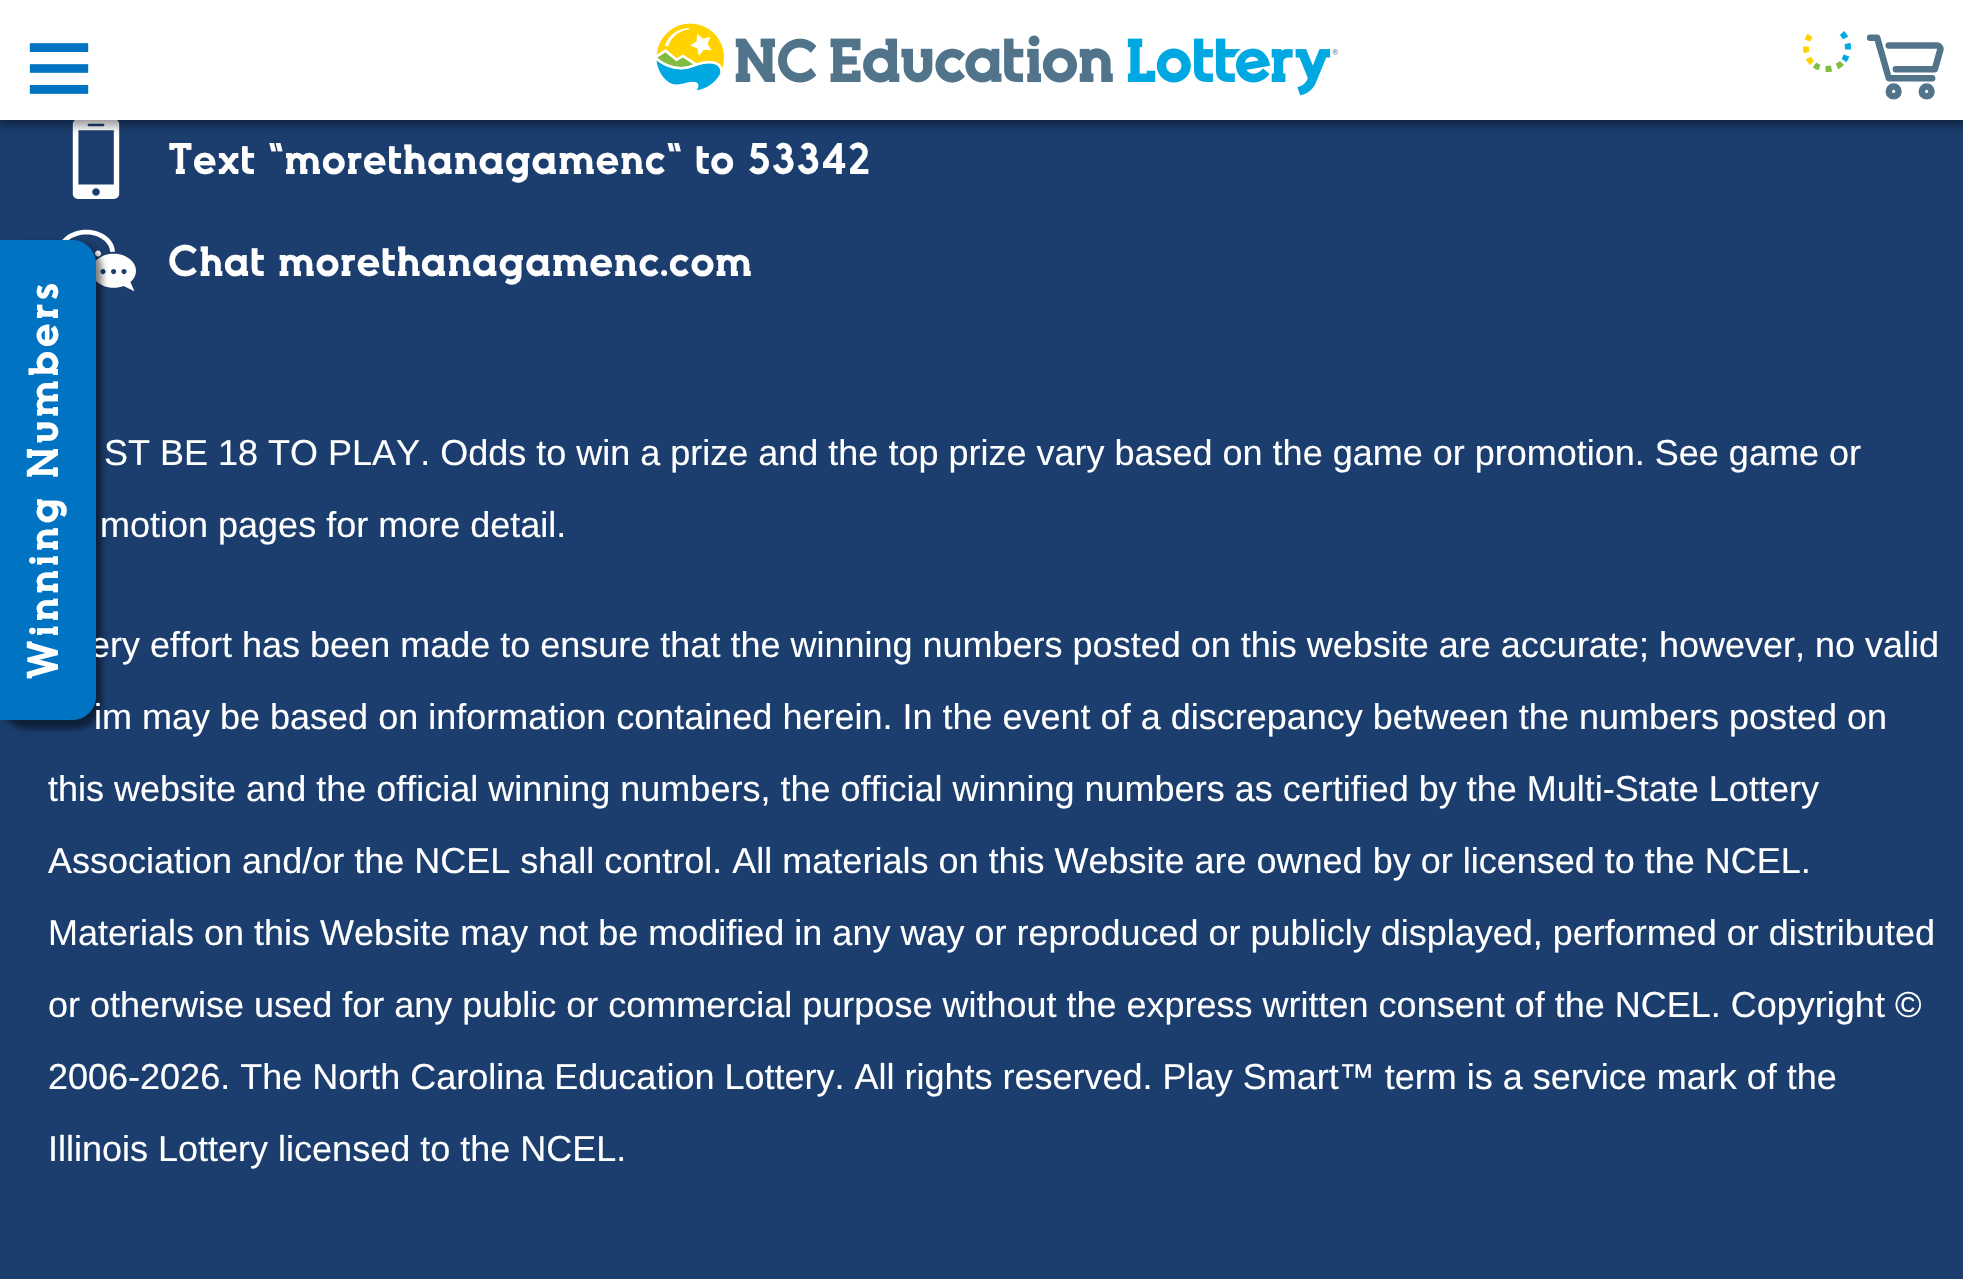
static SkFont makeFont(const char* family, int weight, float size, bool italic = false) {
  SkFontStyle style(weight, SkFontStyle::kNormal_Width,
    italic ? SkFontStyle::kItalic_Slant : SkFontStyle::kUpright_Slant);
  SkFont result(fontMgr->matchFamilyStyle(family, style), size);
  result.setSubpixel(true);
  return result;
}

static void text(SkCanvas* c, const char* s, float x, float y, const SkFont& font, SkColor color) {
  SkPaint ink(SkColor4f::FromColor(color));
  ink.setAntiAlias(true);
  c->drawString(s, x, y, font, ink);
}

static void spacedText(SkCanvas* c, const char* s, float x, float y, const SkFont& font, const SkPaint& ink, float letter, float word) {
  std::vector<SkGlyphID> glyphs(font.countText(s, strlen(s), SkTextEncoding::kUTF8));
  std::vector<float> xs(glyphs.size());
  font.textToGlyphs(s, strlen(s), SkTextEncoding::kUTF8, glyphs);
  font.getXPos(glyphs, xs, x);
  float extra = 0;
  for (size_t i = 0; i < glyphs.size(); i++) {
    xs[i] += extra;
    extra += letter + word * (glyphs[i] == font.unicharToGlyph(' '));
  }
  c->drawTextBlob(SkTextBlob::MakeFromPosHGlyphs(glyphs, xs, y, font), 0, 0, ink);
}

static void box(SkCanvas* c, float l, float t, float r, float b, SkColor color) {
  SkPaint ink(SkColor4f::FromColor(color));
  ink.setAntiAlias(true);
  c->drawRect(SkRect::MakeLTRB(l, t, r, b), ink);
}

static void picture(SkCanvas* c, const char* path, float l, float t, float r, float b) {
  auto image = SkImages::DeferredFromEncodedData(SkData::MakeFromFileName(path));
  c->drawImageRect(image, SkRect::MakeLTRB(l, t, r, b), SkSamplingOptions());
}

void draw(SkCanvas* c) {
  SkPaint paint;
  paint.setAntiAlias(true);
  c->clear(0xff1b3e6f);
  picture(c, "img_03.png", 72, 120, 120, 199);
  paint.setColor(0x66000000);
  paint.setMaskFilter(SkMaskFilter::MakeBlur(kNormal_SkBlurStyle, 4.5f));
  c->drawRect(SkRect::MakeLTRB(-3, 0, 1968, 126), paint);
  paint.setMaskFilter(nullptr);
  box(c, 0, 0, 1963, 120, 0xffffffff);
  SkFont face1 = makeFont("Liberation Sans", 400, 120);
  text(c, "≡", 24, 108, face1, 0xff0073c3);
  picture(c, "img_01.png", 656, 23, 1339, 96);
  paint.setStyle(SkPaint::kStroke_Style);
  paint.setStrokeWidth(6);
  paint.setColor(0xff00a8e1);
  c->drawPath(SkPathBuilder().moveTo(1842, 33).cubicTo(1843.5f, 34.5f, 1844.5f, 36, 1845.5f, 38).moveTo(1847.5f, 43.5f).cubicTo(1848, 45.5f, 1848, 47.5f, 1848, 49.5f).moveTo(1846.5f, 55.5f).cubicTo(1846, 57, 1845, 59, 1844, 60.5f).detach(), paint);
  paint.setColor(0xff81bd41);
  c->drawPath(SkPathBuilder().moveTo(1842, 63).cubicTo(1840.5f, 64.5f, 1839, 65.5f, 1837, 66.5f).moveTo(1831.5f, 68.5f).cubicTo(1829.5f, 69, 1827.5f, 69, 1825.5f, 69).moveTo(1819.5f, 67.5f).cubicTo(1818, 67, 1816, 66, 1814.5f, 65).detach(), paint);
  paint.setColor(0xffffd200);
  c->drawPath(SkPathBuilder().moveTo(1812, 63).cubicTo(1810.5f, 61.5f, 1809.5f, 60, 1808.5f, 58).moveTo(1806.5f, 52.5f).cubicTo(1806, 50.5f, 1806, 48.5f, 1806, 46.5f).moveTo(1807.5f, 40.5f).cubicTo(1808, 39, 1809, 37, 1810, 35.5f).detach(), paint);
  picture(c, "img_02.png", 1866, 34, 1944, 100);
  picture(c, "img_04.png", 62, 229, 136, 292);
  paint.setStyle(SkPaint::kFill_Style);
  paint.setColor(0x80000000);
  paint.setMaskFilter(SkMaskFilter::MakeBlur(kNormal_SkBlurStyle, 3));
  c->drawRoundRect(SkRect::MakeLTRB(0, 243, 102, 729), 27, 27, paint);
  paint.setMaskFilter(nullptr);
  SkFont face2 = makeFont("Liberation Sans", 400, 36);
  text(c, "ery effort has been made to ensure that the winning numbers posted on this website are accurate; however, no valid", 90, 657, face2, 0xffffffff);
  paint.setColor(0xff0073c3);
  c->drawPath(SkPathBuilder().moveTo(0, 240).lineTo(72, 240).cubicTo(85.5f, 240, 96, 250.5f, 96, 264).lineTo(96, 696).cubicTo(96, 709.5f, 85.5f, 720, 72, 720).lineTo(0, 720).close().detach(), paint);
  SkFont face3 = makeFont("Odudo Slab", 600, 42);
  paint.setColor(0xffffffff);
  c->save();
  c->rotate(-90, 58, 680);
  spacedText(c, "Winning Numbers", 58, 680, face3, paint, 3, 0);
  c->restore();
  text(c, "Text \"morethanagamenc\" to 53342", 168, 174, face3, 0xffffffff);
  text(c, "Chat morethanagamenc.com", 168, 276, face3, 0xffffffff);
  text(c, "ST BE 18 TO PLAY. Odds to win a prize and the top prize vary based on the game or promotion. See game or", 104, 465, face2, 0xffffffff);
  text(c, "motion pages for more detail.", 100, 537, face2, 0xffffffff);
  text(c, "im may be based on information contained herein. In the event of a discrepancy between the numbers posted on", 94, 729, face2, 0xffffffff);
  text(c, "this website and the official winning numbers, the official winning numbers as certified by the Multi-State Lottery", 48, 801, face2, 0xffffffff);
  text(c, "Association and/or the NCEL shall control. All materials on this Website are owned by or licensed to the NCEL.", 48, 873, face2, 0xffffffff);
  text(c, "Materials on this Website may not be modified in any way or reproduced or publicly displayed, performed or distributed", 48, 945, face2, 0xffffffff);
  text(c, "or otherwise used for any public or commercial purpose without the express written consent of the NCEL. Copyright ©", 48, 1017, face2, 0xffffffff);
  text(c, "2006-2026. The North Carolina Education Lottery. All rights reserved. Play Smart™ term is a service mark of the", 48, 1089, face2, 0xffffffff);
  text(c, "Illinois Lottery licensed to the NCEL.", 48, 1161, face2, 0xffffffff);
}
